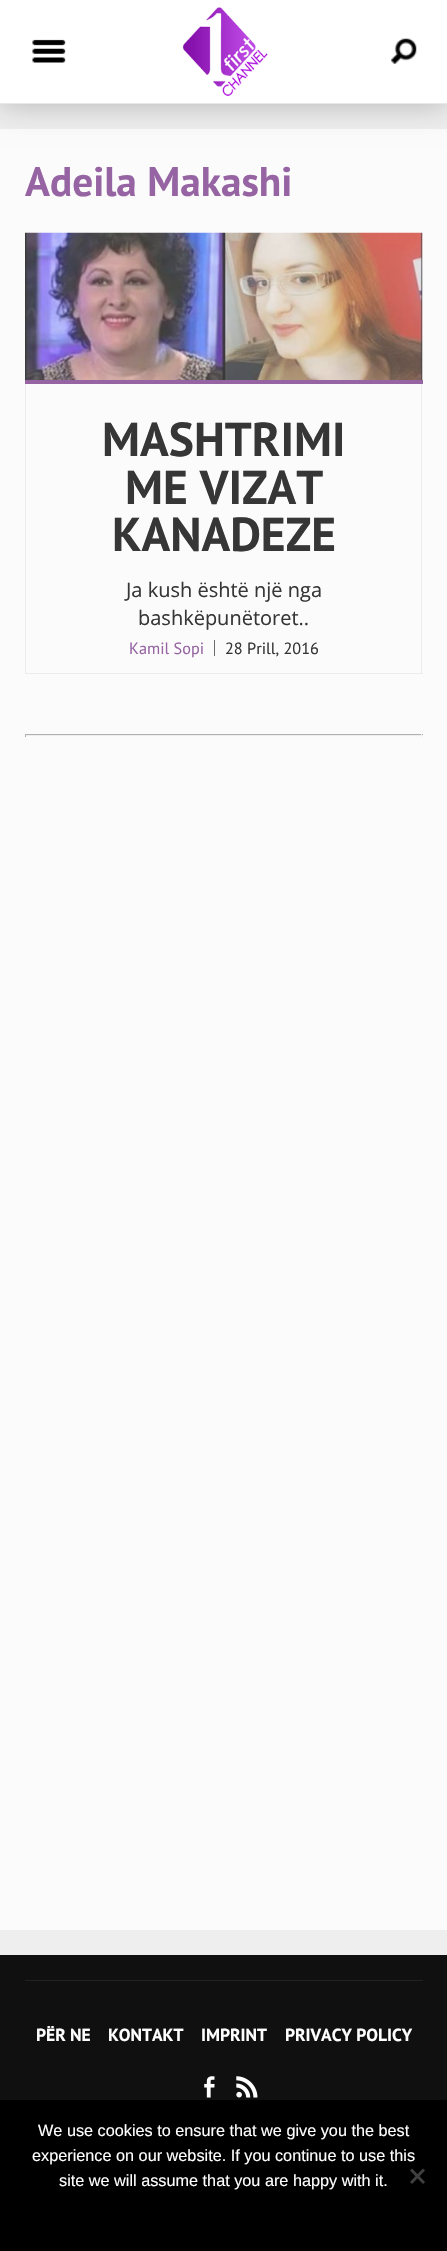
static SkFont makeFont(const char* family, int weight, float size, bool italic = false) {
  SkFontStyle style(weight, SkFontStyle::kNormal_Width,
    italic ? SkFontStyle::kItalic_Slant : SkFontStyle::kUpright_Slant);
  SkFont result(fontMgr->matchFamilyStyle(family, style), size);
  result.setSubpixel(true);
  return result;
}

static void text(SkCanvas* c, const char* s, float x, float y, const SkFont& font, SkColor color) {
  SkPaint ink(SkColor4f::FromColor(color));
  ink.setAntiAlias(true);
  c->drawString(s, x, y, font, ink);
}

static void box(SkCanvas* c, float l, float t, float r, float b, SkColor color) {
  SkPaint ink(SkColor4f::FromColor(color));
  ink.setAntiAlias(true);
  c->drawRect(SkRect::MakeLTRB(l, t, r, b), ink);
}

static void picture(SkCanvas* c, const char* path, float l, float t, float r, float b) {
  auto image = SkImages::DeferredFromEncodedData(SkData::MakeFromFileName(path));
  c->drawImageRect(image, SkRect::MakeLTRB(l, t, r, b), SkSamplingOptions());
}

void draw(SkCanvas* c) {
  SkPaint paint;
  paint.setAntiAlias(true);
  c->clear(0xffeeeeee);
  box(c, 0, 129, 447, 1930, 0xfffbfbfb);
  paint.setColor(0x40000000);
  paint.setMaskFilter(SkMaskFilter::MakeBlur(kNormal_SkBlurStyle, 15));
  c->drawRect(SkRect::MakeLTRB(0, 0, 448, 104), paint);
  paint.setMaskFilter(nullptr);
  box(c, 0, 0, 447, 103, 0xffffffff);
  box(c, 0, 103, 447, 104, 0xffe8e8e8);
  picture(c, "img_01.png", 32, 39, 66, 63);
  picture(c, "img_02.png", 183, 7, 268, 96);
  picture(c, "img_03.png", 391, 38, 417, 64);
  SkFont face1 = makeFont("PT Sans", 700, 41.25f);
  text(c, "Adeila Makashi", 25, 196, face1, 0xff9664a2);
  box(c, 25, 380, 423, 384, 0xff9664a2);
  picture(c, "img_04.png", 25, 232, 423, 380);
  box(c, 421, 384, 422, 674, 0xffececec);
  box(c, 25, 673, 423, 674, 0xffececec);
  box(c, 25, 384, 26, 674, 0xffececec);
  SkFont face2 = makeFont("PT Sans", 700, 47.5f);
  text(c, "MASHTRIMI", 102, 456, face2, 0xff363636);
  text(c, "ME VIZAT", 125, 504, face2, 0xff363636);
  text(c, "KANADEZE", 112, 551, face2, 0xff363636);
  SkFont face3 = makeFont("Open Sans", 400, 20);
  text(c, "Ja kush është një nga", 126, 597, face3, 0xff363636);
  text(c, "bashkëpunëtoret..", 138, 625, face3, 0xff363636);
  box(c, 214, 640, 215, 656, 0xff6b6b6b);
  SkFont face4 = makeFont("PT Sans", 400, 16.25f);
  text(c, "Kamil Sopi", 129, 654, face4, 0xff9664a2);
  text(c, "28 Prill, 2016", 225, 654, face4, 0xff363636);
  box(c, 25, 734, 423, 735, 0xffb1b1b1);
  box(c, 421, 734, 422, 737, 0xffeeeeee);
  box(c, 25, 735, 423, 736, 0xffeeeeee);
  box(c, 25, 734, 26, 737, 0xffb1b1b1);
  box(c, 0, 1955, 447, 2100, 0xff101010);
  box(c, 25, 1980, 423, 1981, 0xff232323);
  SkFont face5 = makeFont("PT Sans", 700, 17.5f);
  text(c, "PËR NE", 36, 2041, face5, 0xffffffff);
  text(c, "KONTAKT", 108, 2041, face5, 0xffffffff);
  text(c, "IMPRINT", 201, 2041, face5, 0xffffffff);
  text(c, "PRIVACY POLICY", 285, 2041, face5, 0xffffffff);
  picture(c, "img_05.png", 204, 2076, 215, 2098);
  picture(c, "img_06.png", 236, 2076, 258, 2098);
  box(c, 0, 2100, 447, 2251, 0xff000000);
  SkFont face6 = makeFont("Liberation Sans", 400, 16.25f);
  text(c, "We use cookies to ensure that we give you the best", 38, 2136, face6, 0xffffffff);
  text(c, "experience on our website. If you continue to use this", 32, 2161, face6, 0xffffffff);
  text(c, "site we will assume that you are happy with it.", 59, 2186, face6, 0xffffffff);
  paint.setColor(0xff404040);
  c->drawPath(SkPathBuilder().moveTo(423, 2168.5f).lineTo(425, 2170.5f).lineTo(412, 2184).lineTo(410, 2182).close().detach(), paint);
  c->drawPath(SkPathBuilder().moveTo(410, 2170.5f).lineTo(412, 2168.5f).lineTo(425, 2182).lineTo(423, 2184).close().detach(), paint);
}
